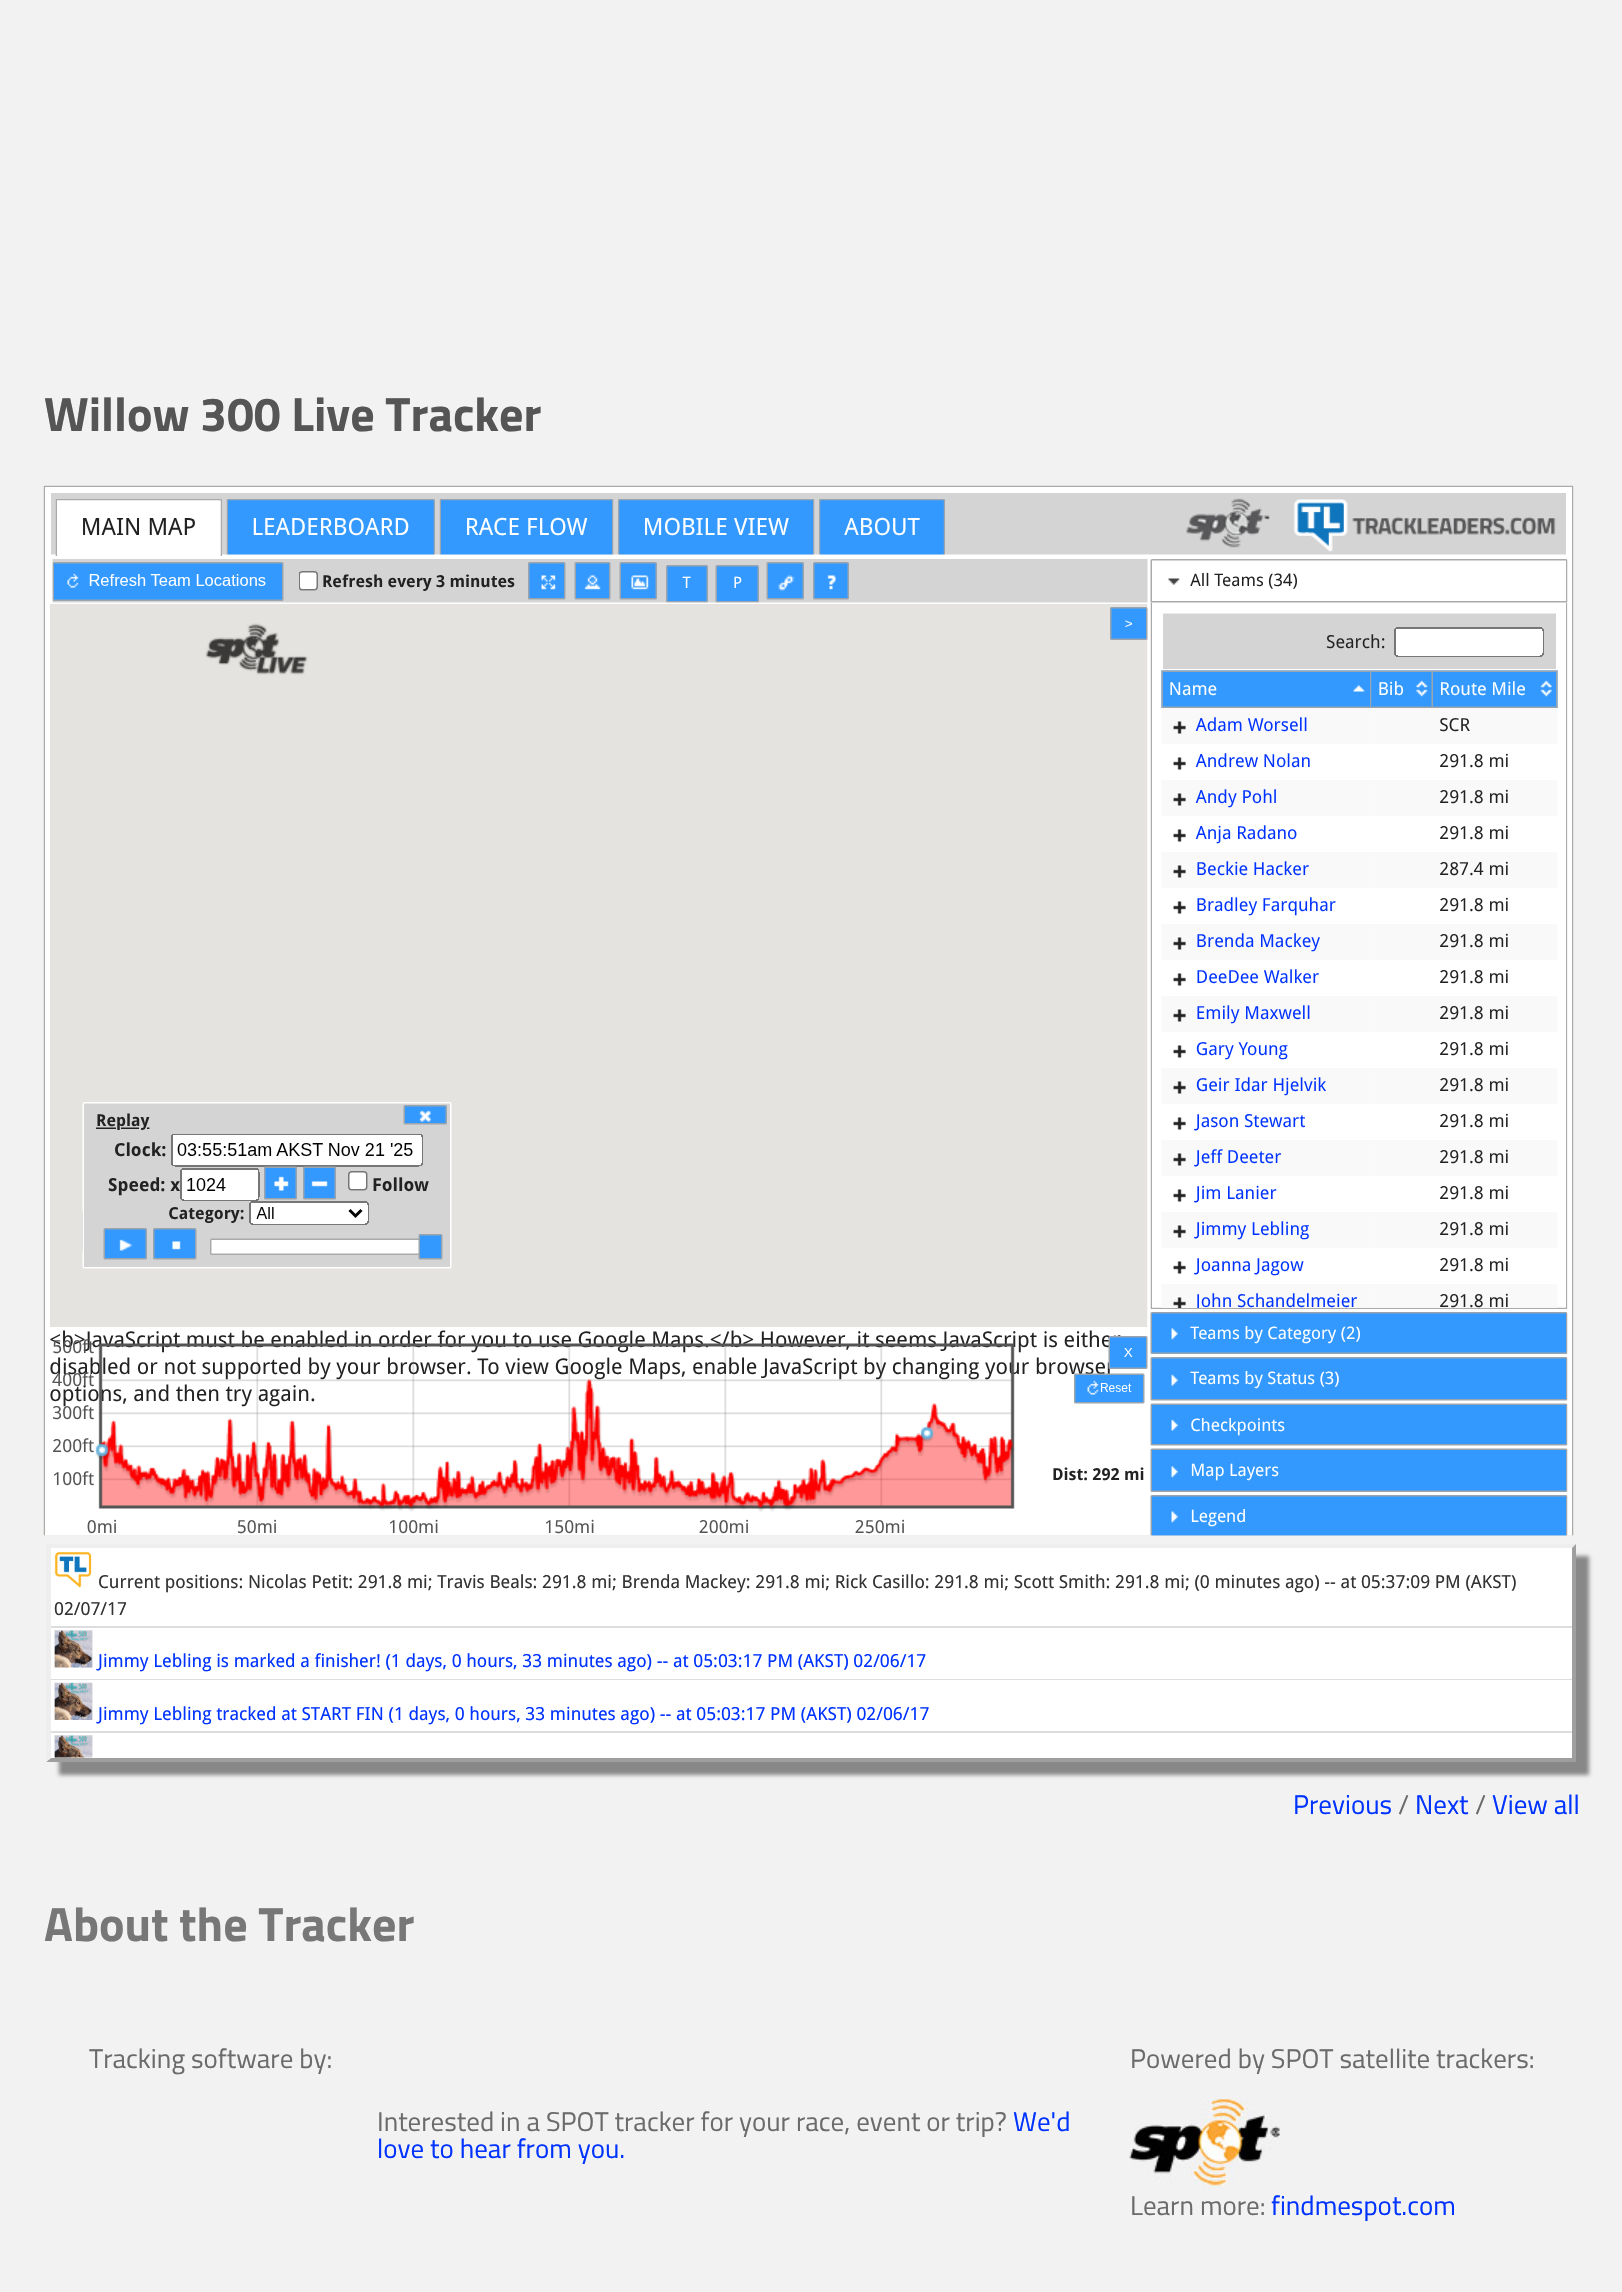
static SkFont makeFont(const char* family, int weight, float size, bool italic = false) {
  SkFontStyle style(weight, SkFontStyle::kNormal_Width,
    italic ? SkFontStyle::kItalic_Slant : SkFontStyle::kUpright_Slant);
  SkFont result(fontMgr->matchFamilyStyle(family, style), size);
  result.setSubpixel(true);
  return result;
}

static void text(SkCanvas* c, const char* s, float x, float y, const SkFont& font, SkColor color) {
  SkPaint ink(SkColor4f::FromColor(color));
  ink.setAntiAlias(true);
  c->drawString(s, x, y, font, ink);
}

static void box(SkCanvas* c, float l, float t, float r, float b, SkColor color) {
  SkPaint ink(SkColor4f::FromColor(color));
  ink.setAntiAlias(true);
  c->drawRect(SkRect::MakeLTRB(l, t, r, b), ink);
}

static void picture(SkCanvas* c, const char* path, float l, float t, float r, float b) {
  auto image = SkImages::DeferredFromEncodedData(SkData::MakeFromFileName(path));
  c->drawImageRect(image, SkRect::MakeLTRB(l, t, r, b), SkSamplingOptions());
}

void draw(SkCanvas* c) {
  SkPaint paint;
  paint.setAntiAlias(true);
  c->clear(0xfff2f2f2);
  SkFont face1 = makeFont("Titillium Web", 700, 48);
  text(c, "Willow 300 Live Tracker", 44, 431, face1, 0xff555555);
  picture(c, "img_01.png", 43, 485, 1574, 1536);
  paint.setColor(0xff888888);
  paint.setMaskFilter(SkMaskFilter::MakeBlur(kNormal_SkBlurStyle, 2));
  c->drawRect(SkRect::MakeLTRB(59, 1556, 1589, 1775), paint);
  paint.setMaskFilter(nullptr);
  paint.setColor(0xffeeeeee);
  c->drawPath(SkPathBuilder().moveTo(46, 1544).lineTo(1576, 1544).lineTo(1572, 1548).lineTo(51, 1548).close().detach(), paint);
  paint.setColor(0xff9f9f9f);
  c->drawPath(SkPathBuilder().moveTo(1576, 1544).lineTo(1576, 1762).lineTo(1572, 1758).lineTo(1572, 1548).close().detach(), paint);
  c->drawPath(SkPathBuilder().moveTo(1576, 1762).lineTo(46, 1762).lineTo(51, 1758).lineTo(1572, 1758).close().detach(), paint);
  paint.setColor(0xffeeeeee);
  c->drawPath(SkPathBuilder().moveTo(46, 1762).lineTo(46, 1544).lineTo(51, 1548).lineTo(51, 1758).close().detach(), paint);
  box(c, 51, 1548, 1572, 1626, 0xffffffff);
  box(c, 51, 1626, 1572, 1628, 0xffdddddd);
  picture(c, "img_02.png", 54, 1552, 92, 1588);
  SkFont face2 = makeFont("Droid Sans", 400, 18);
  text(c, "Current positions: Nicolas Petit: 291.8 mi; Travis Beals: 291.8 mi; Brenda Mackey: 291.8 mi; Rick Casillo: 291.8 mi; Scott Smith: 291.8 mi; (0 minutes ago) -- at 05:37:09 PM (AKST)", 98, 1588, face2, 0xff333333);
  text(c, "02/07/17", 54, 1615, face2, 0xff333333);
  box(c, 51, 1628, 1572, 1679, 0xffffffff);
  box(c, 51, 1679, 1572, 1680, 0xffdddddd);
  picture(c, "img_03.png", 54, 1630, 93, 1668);
  text(c, "Jimmy Lebling is marked a finisher! (1 days, 0 hours, 33 minutes ago) -- at 05:03:17 PM (AKST) 02/06/17", 98, 1667, face2, 0xff0033ff);
  box(c, 51, 1680, 1572, 1731, 0xffffffff);
  box(c, 51, 1731, 1572, 1733, 0xffdddddd);
  picture(c, "img_04.png", 54, 1682, 93, 1720);
  text(c, "Jimmy Lebling tracked at START FIN (1 days, 0 hours, 33 minutes ago) -- at 05:03:17 PM (AKST) 02/06/17", 98, 1720, face2, 0xff0033ff);
  box(c, 51, 1733, 1572, 1758, 0xffffffff);
  picture(c, "img_05.png", 54, 1735, 93, 1758);
  SkFont face3 = makeFont("Titillium Web", 400, 27);
  text(c, "Previous", 1293, 1814, face3, 0xff0033ff);
  text(c, "/", 1398, 1814, face3, 0xff6b6b6b);
  text(c, "Next", 1415, 1814, face3, 0xff0033ff);
  text(c, "/", 1475, 1814, face3, 0xff6b6b6b);
  text(c, "View all", 1492, 1814, face3, 0xff0033ff);
  text(c, "About the Tracker", 44, 1941, face1, 0xff777777);
  text(c, "Tracking software by:", 89, 2068, face3, 0xff6b6b6b);
  text(c, "Interested in a SPOT tracker for your race, event or trip?", 377, 2131, face3, 0xff6b6b6b);
  text(c, "We'd", 1013, 2131, face3, 0xff0033ff);
  text(c, "Powered by SPOT satellite trackers:", 1130, 2068, face3, 0xff6b6b6b);
  picture(c, "img_06.png", 1129, 2099, 1280, 2188);
  text(c, "Learn more:", 1130, 2215, face3, 0xff6b6b6b);
  text(c, "findmespot.com", 1271, 2215, face3, 0xff0033ff);
  text(c, "love to hear from you.", 377, 2158, face3, 0xff0033ff);
}
